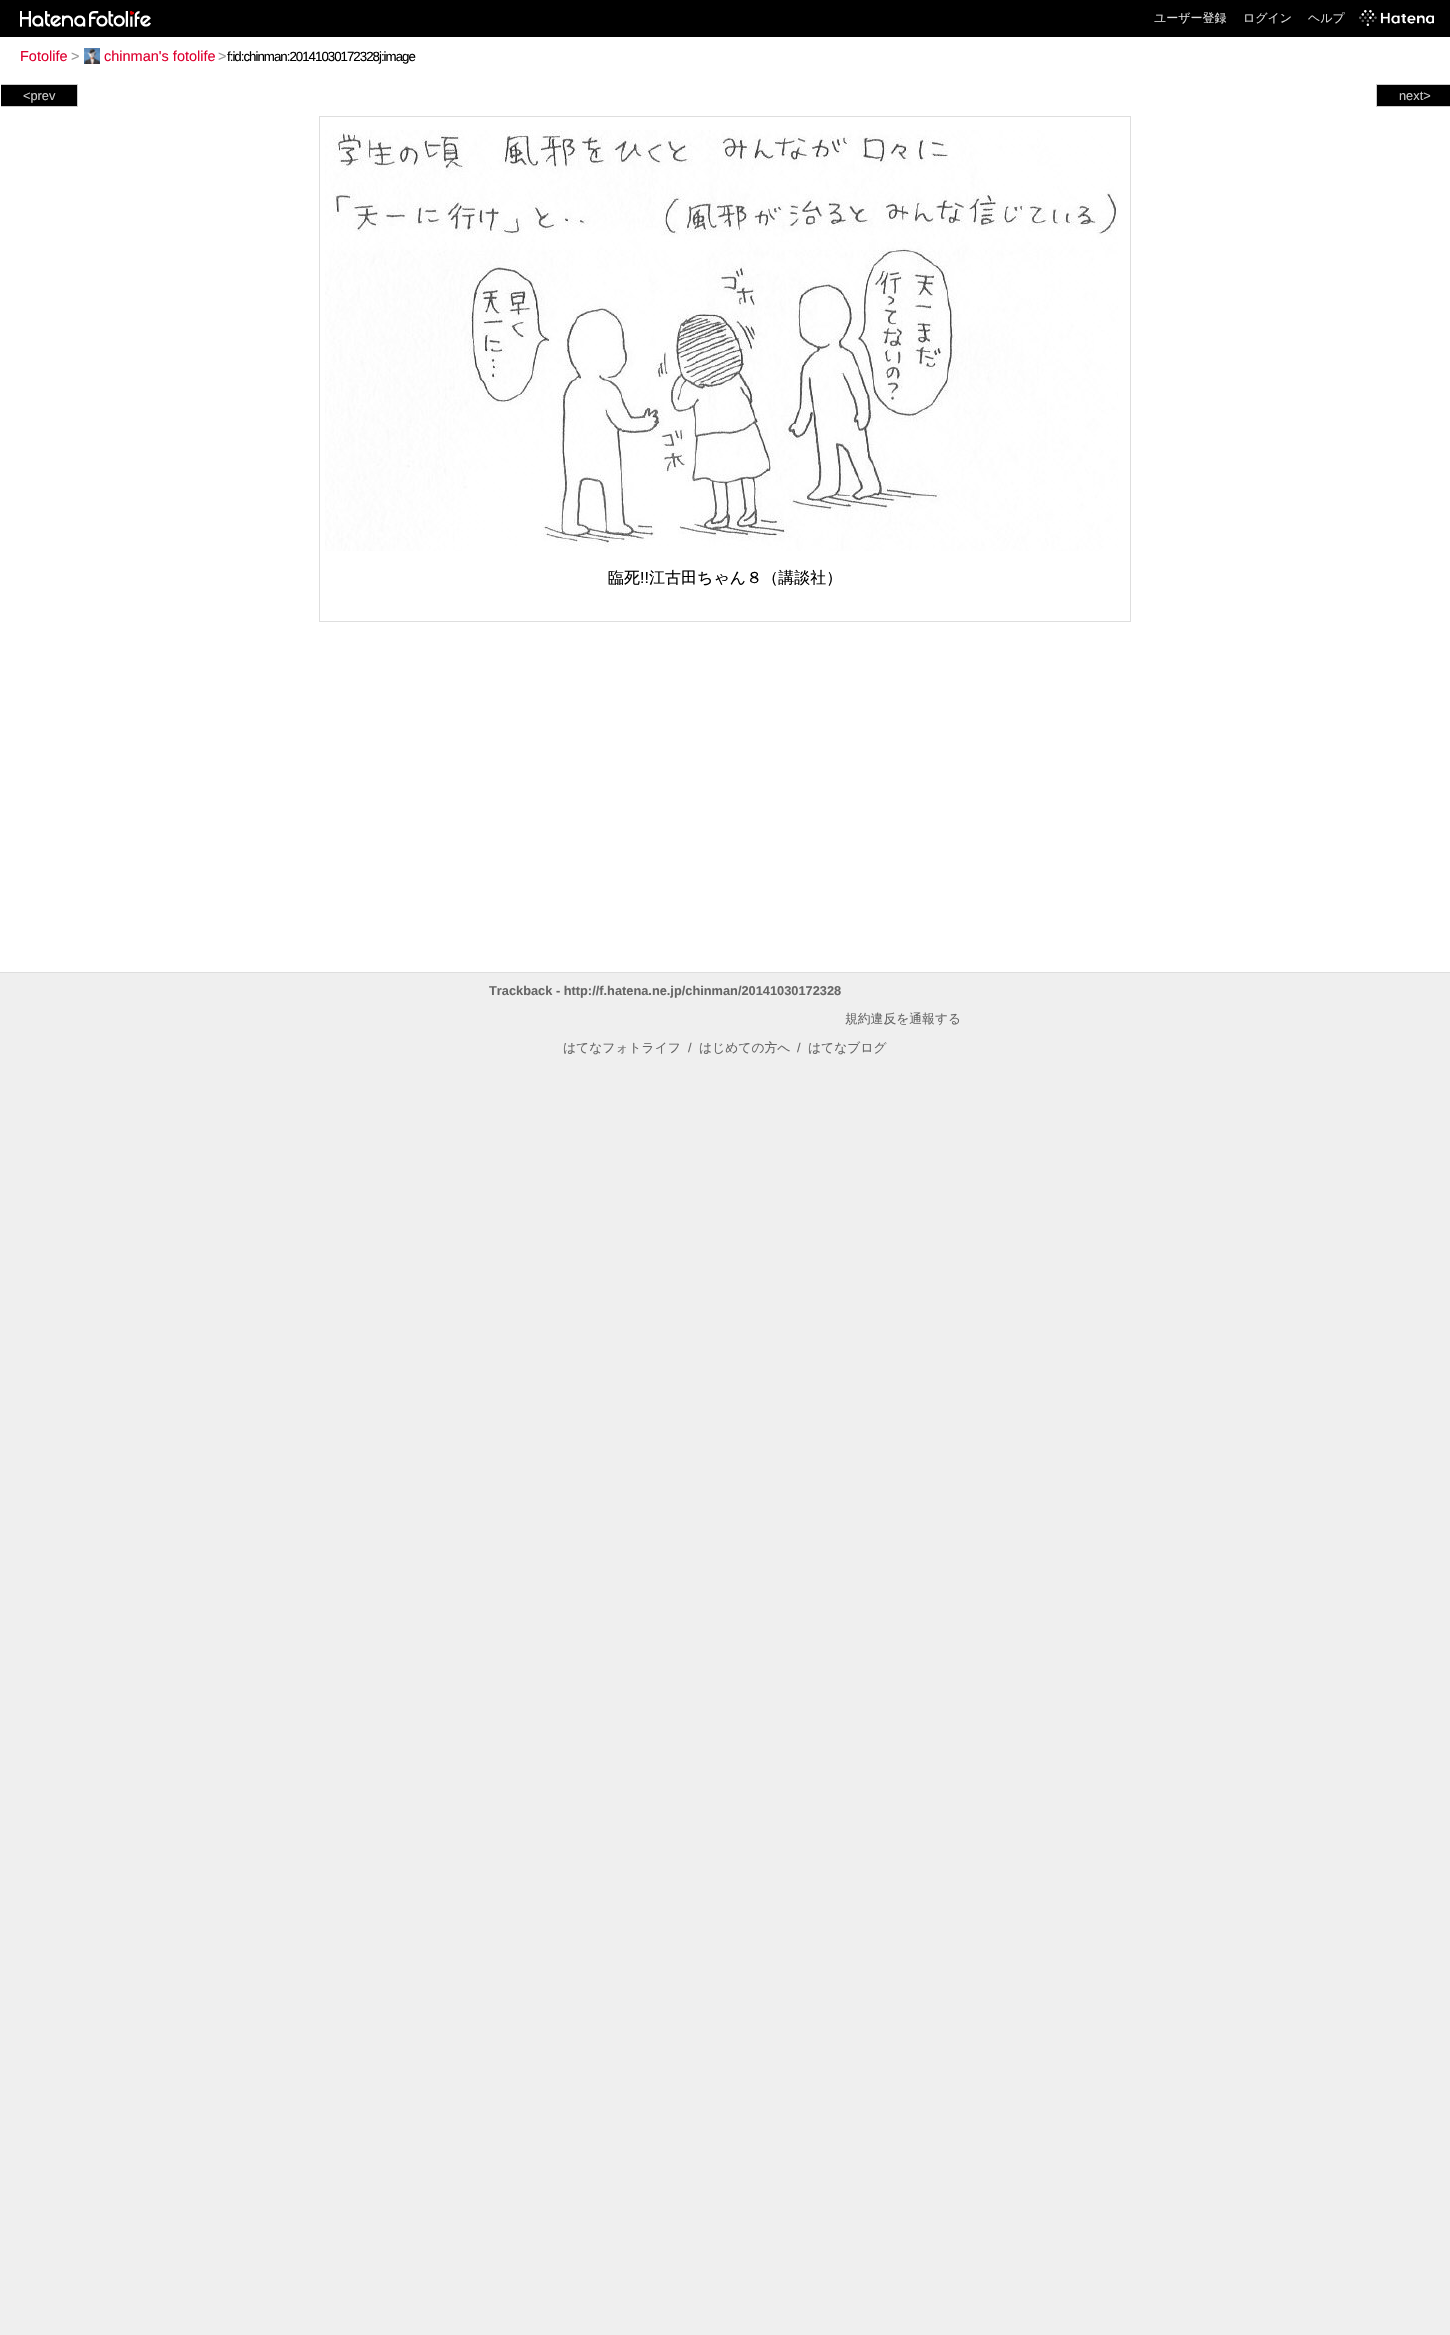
static SkFont makeFont(const char* family, int weight, float size, bool italic = false) {
  SkFontStyle style(weight, SkFontStyle::kNormal_Width,
    italic ? SkFontStyle::kItalic_Slant : SkFontStyle::kUpright_Slant);
  SkFont result(fontMgr->matchFamilyStyle(family, style), size);
  result.setSubpixel(true);
  return result;
}

static void text(SkCanvas* c, const char* s, float x, float y, const SkFont& font, SkColor color) {
  SkPaint ink(SkColor4f::FromColor(color));
  ink.setAntiAlias(true);
  c->drawString(s, x, y, font, ink);
}

static void spacedText(SkCanvas* c, const char* s, float x, float y, const SkFont& font, const SkPaint& ink, float letter, float word) {
  std::vector<SkGlyphID> glyphs(font.countText(s, strlen(s), SkTextEncoding::kUTF8));
  std::vector<float> xs(glyphs.size());
  font.textToGlyphs(s, strlen(s), SkTextEncoding::kUTF8, glyphs);
  font.getXPos(glyphs, xs, x);
  float extra = 0;
  for (size_t i = 0; i < glyphs.size(); i++) {
    xs[i] += extra;
    extra += letter + word * (glyphs[i] == font.unicharToGlyph(' '));
  }
  c->drawTextBlob(SkTextBlob::MakeFromPosHGlyphs(glyphs, xs, y, font), 0, 0, ink);
}

static void box(SkCanvas* c, float l, float t, float r, float b, SkColor color) {
  SkPaint ink(SkColor4f::FromColor(color));
  ink.setAntiAlias(true);
  c->drawRect(SkRect::MakeLTRB(l, t, r, b), ink);
}

static void picture(SkCanvas* c, const char* path, float l, float t, float r, float b) {
  auto image = SkImages::DeferredFromEncodedData(SkData::MakeFromFileName(path));
  c->drawImageRect(image, SkRect::MakeLTRB(l, t, r, b), SkSamplingOptions());
}

void draw(SkCanvas* c) {
  SkPaint paint;
  paint.setAntiAlias(true);
  c->clear(0xffefefef);
  box(c, 0, 0, 1450, 37, 0xff000000);
  picture(c, "img_01.png", 20, 11, 86, 27);
  picture(c, "img_02.png", 89, 11, 151, 27);
  SkFont face1 = makeFont("WenQuanYi Zen Hei", 500, 12);
  text(c, "ユーザー登録", 1154, 22, face1, 0xffdddddd);
  text(c, "ログイン", 1243, 22, face1, 0xffdddddd);
  text(c, "ヘルプ", 1308, 22, face1, 0xffdddddd);
  picture(c, "img_03.png", 1359, 10, 1434, 26);
  box(c, 0, 37, 1450, 972, 0xffffffff);
  SkFont face2 = makeFont("Liberation Sans", 400, 14.5f);
  text(c, "Fotolife", 20, 61, face2, 0xffde002f);
  text(c, ">", 71, 61, face2, 0xff999999);
  picture(c, "img_04.png", 84, 48, 100, 64);
  text(c, "chinman's fotolife", 104, 61, face2, 0xffde002f);
  text(c, ">", 218, 61, face2, 0xff999999);
  SkFont face3 = makeFont("Liberation Sans", 400, 13.3f);
  paint.setColor(0xff000000);
  spacedText(c, "f:id:chinman:20141030172328j:image", 227, 61, face3, paint, -1, 0);
  box(c, 0, 972, 1450, 973, 0xffdedede);
  box(c, 1, 85, 77, 106, 0xff000000);
  box(c, 1, 84, 78, 85, 0xffcccccc);
  box(c, 77, 84, 78, 107, 0xffcccccc);
  box(c, 1, 106, 78, 107, 0xffcccccc);
  SkFont face4 = makeFont("Liberation Sans", 400, 12.8f);
  text(c, "<prev", 23, 100, face4, 0xffcccccc);
  box(c, 1377, 85, 1450, 106, 0xff000000);
  box(c, 1376, 84, 1450, 85, 0xffcccccc);
  box(c, 1376, 106, 1450, 107, 0xffcccccc);
  box(c, 1376, 84, 1377, 107, 0xffcccccc);
  text(c, "next>", 1399, 100, face4, 0xffcccccc);
  paint.setStyle(SkPaint::kStroke_Style);
  paint.setStrokeWidth(1);
  paint.setColor(0xffdedede);
  c->drawRect(SkRect::MakeLTRB(319.5f, 116.5f, 1130.5f, 621.5f), paint);
  picture(c, "img_05.png", 325, 130, 1118, 551);
  SkFont face5 = makeFont("WenQuanYi Zen Hei", 500, 16);
  text(c, "臨死", 608, 583, face5, 0xff000000);
  SkFont face6 = makeFont("Liberation Sans", 400, 16);
  text(c, "!!", 640, 583, face6, 0xff000000);
  text(c, "江古田ちゃん８（講談社）", 649, 583, face5, 0xff000000);
  SkFont face7 = makeFont("Liberation Sans", 700, 12.8f);
  text(c, "Trackback - http://f.hatena.ne.jp/chinman/20141030172328", 489, 995, face7, 0xff666666);
  SkFont face8 = makeFont("WenQuanYi Zen Hei", 500, 12.8f);
  text(c, "規約違反を通報する", 845, 1023, face8, 0xff666666);
  text(c, "はてなフォトライフ", 563, 1052, face8, 0xff666666);
  text(c, "/", 688, 1052, face4, 0xff666666);
  text(c, "はじめての方へ", 699, 1052, face8, 0xff666666);
  text(c, "/", 797, 1052, face4, 0xff666666);
  text(c, "はてなブログ", 808, 1052, face8, 0xff666666);
}
